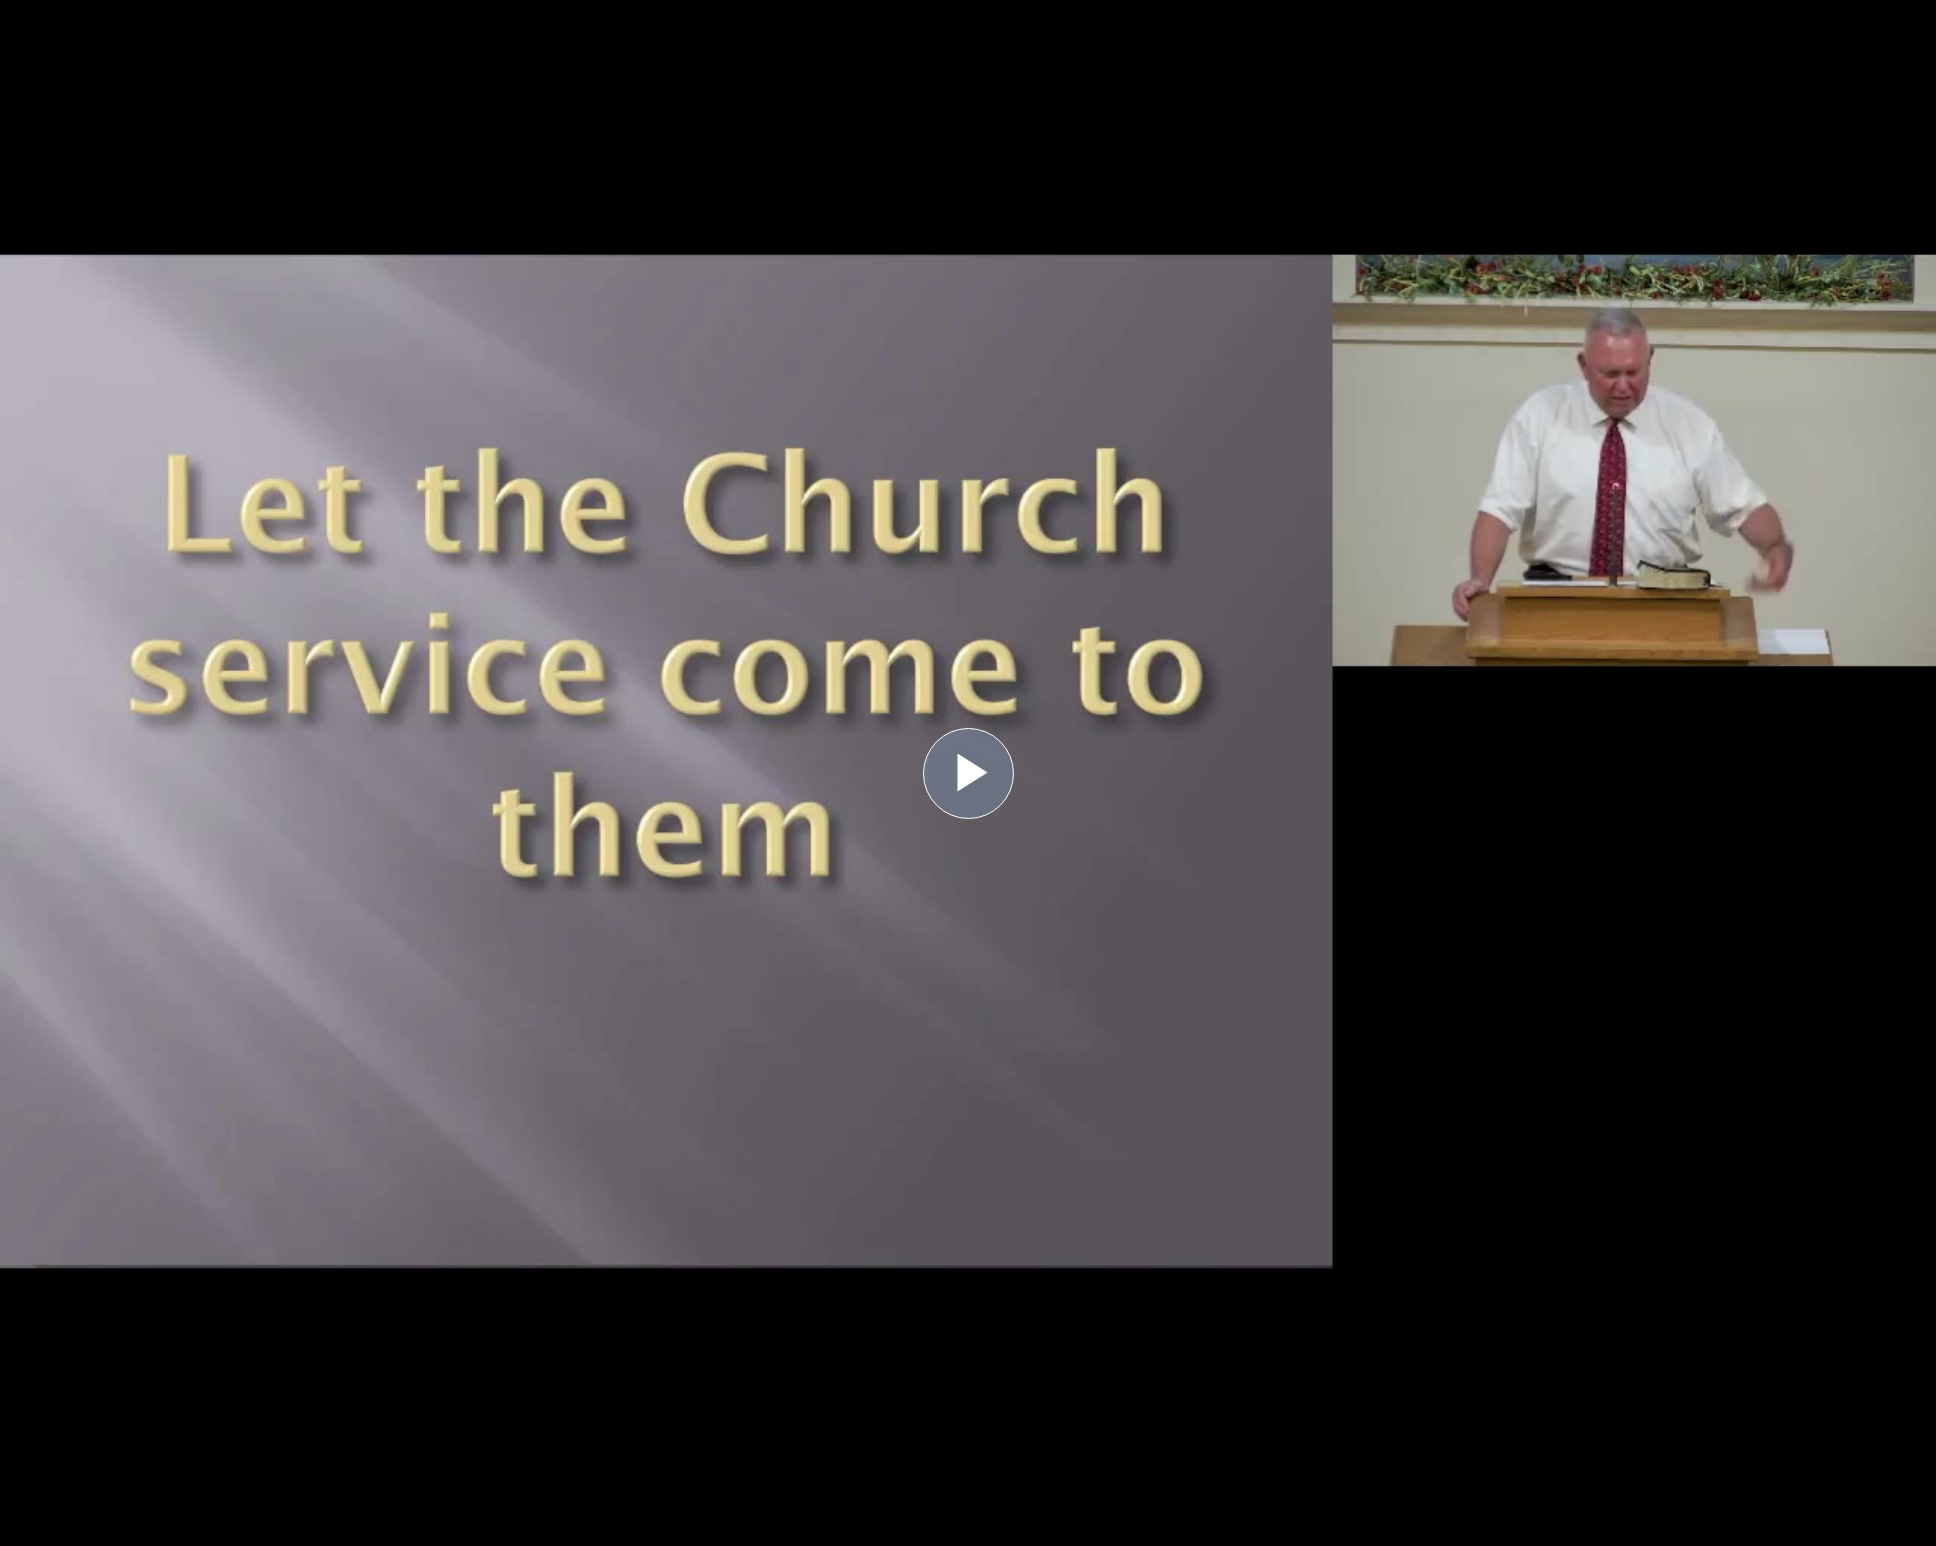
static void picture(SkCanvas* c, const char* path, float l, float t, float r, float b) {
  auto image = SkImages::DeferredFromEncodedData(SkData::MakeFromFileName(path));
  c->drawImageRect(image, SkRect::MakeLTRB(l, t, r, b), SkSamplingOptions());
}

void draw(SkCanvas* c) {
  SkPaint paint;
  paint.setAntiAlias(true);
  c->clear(0xff000000);
  picture(c, "img_01.png", 0, 252, 1936, 1270);
  paint.setColor(0x8073859f);
  c->drawCircle(968.5f, 773.5f, 45, paint);
  paint.setStyle(SkPaint::kStroke_Style);
  paint.setStrokeWidth(1);
  paint.setColor(0xffffffff);
  c->drawCircle(968.5f, 773.5f, 45, paint);
  paint.setStyle(SkPaint::kFill_Style);
  c->drawPath(SkPathBuilder().moveTo(957.5f, 753.5f).lineTo(957.5f, 791.5f).lineTo(987.5f, 772.5f).close().detach(), paint);
}
